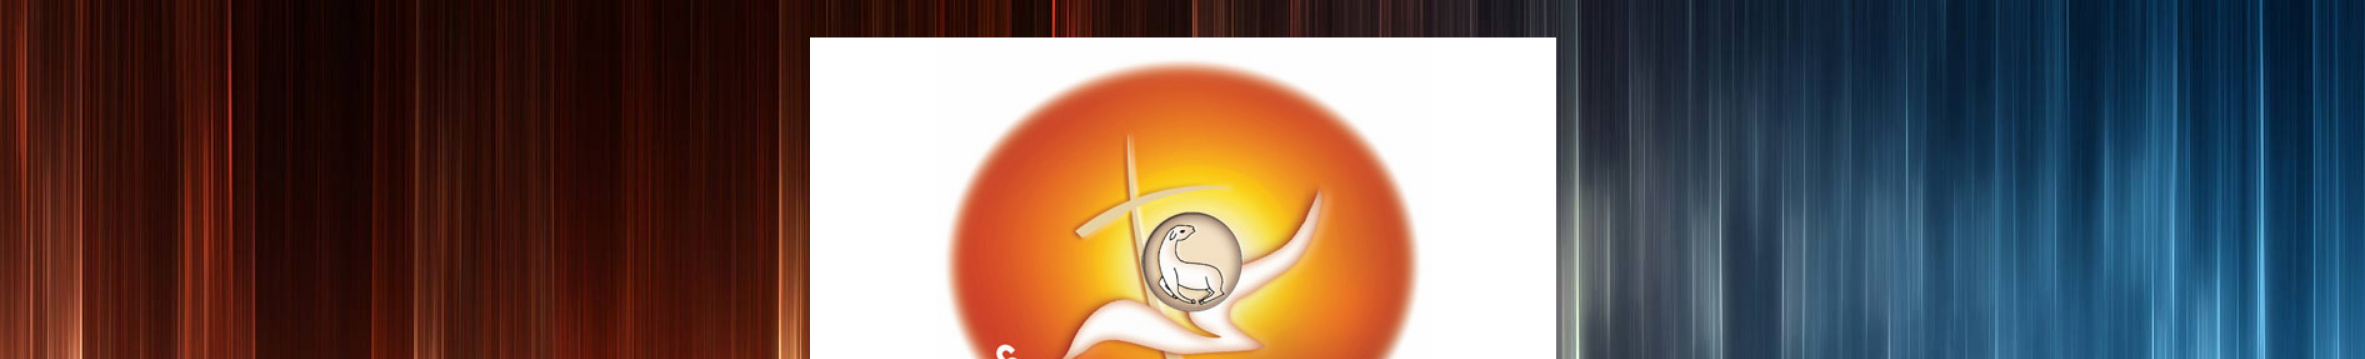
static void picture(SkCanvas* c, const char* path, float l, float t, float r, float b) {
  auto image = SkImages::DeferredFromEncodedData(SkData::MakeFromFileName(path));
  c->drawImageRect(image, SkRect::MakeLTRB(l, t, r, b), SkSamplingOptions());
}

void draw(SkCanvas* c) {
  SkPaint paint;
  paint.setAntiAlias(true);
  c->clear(0xffffffff);
  picture(c, "img_01.png", 0, 0, 2365, 359);
  picture(c, "img_02.png", 810, 37, 1557, 359);
}
